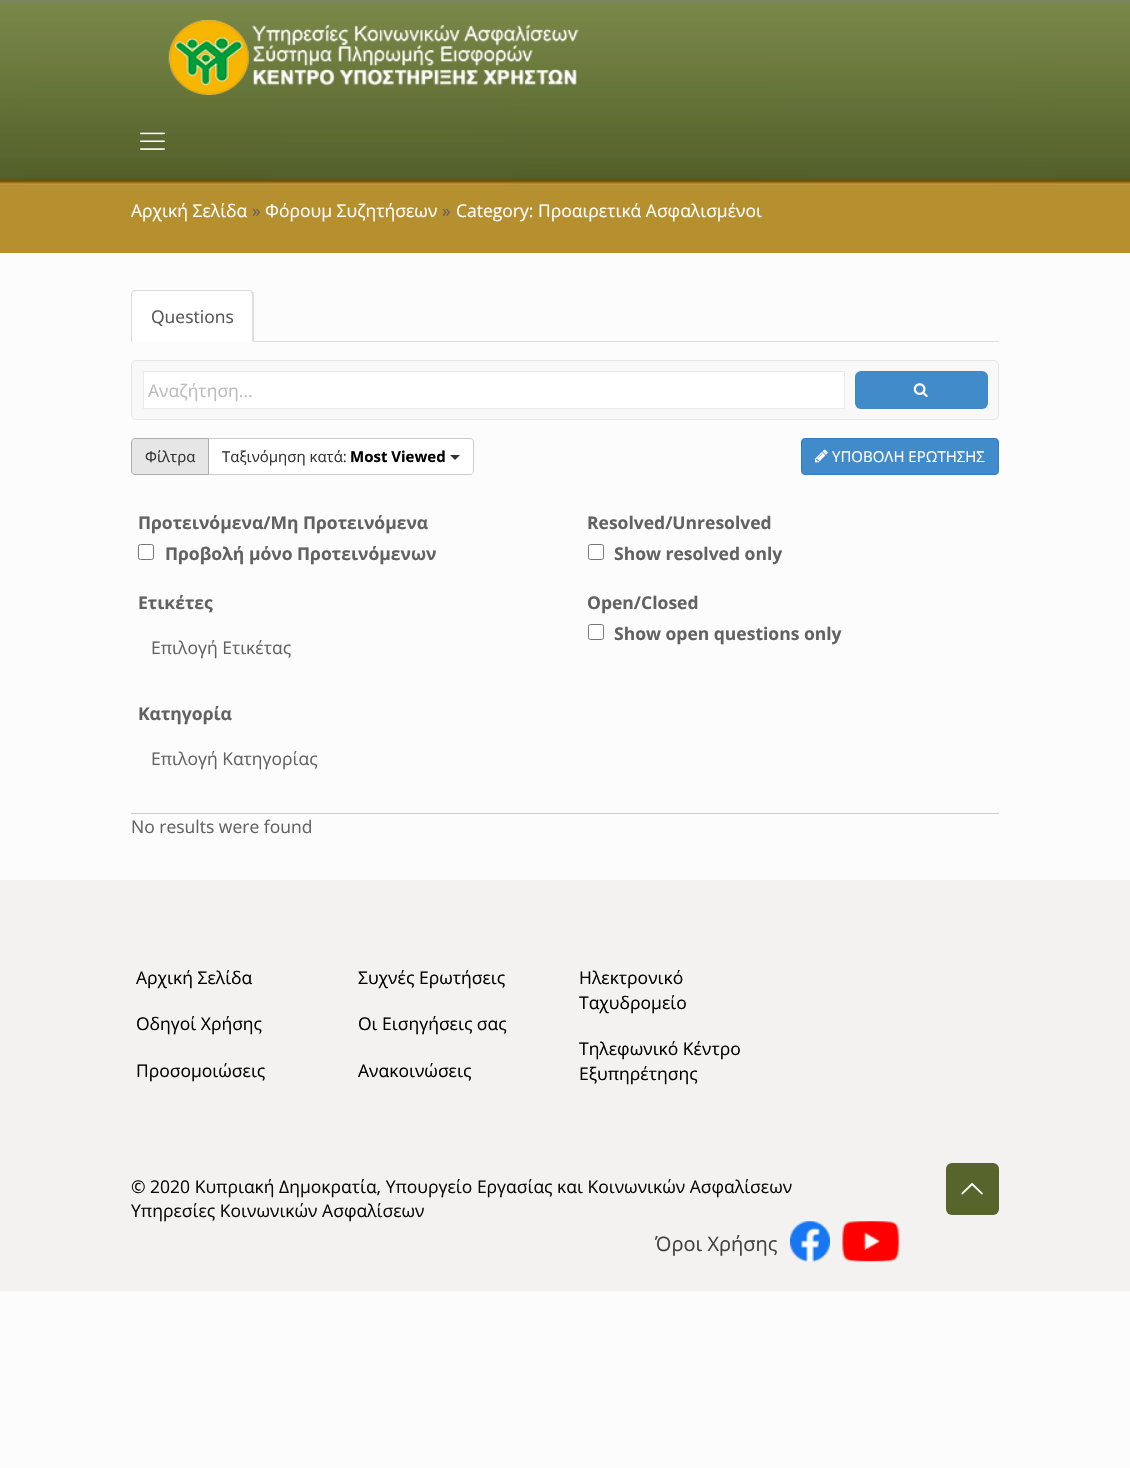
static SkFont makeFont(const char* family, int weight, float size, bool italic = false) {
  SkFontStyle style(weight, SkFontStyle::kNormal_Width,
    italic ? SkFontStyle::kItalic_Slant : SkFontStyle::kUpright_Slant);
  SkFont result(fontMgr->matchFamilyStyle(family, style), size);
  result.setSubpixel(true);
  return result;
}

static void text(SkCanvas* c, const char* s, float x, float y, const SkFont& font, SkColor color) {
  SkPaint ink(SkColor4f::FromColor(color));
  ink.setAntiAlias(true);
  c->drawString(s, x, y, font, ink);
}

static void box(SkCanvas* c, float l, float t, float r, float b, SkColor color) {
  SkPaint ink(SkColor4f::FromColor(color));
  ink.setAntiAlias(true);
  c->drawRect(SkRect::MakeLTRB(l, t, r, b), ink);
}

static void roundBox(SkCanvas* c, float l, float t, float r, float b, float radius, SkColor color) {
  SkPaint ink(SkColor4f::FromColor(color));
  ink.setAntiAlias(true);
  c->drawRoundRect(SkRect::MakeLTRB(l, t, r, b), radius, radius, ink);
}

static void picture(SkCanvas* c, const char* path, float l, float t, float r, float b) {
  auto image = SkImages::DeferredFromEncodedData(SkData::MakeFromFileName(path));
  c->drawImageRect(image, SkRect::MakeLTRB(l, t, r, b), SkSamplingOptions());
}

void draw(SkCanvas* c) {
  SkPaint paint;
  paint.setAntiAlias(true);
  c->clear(0xfffcfcfc);
  picture(c, "img_01.png", 0, 0, 1130, 185);
  picture(c, "img_02.png", 168, 20, 579, 95);
  picture(c, "img_03.png", 140, 132, 165, 150);
  box(c, 0, 185, 1130, 253, 0xffb68f2e);
  SkFont face1 = makeFont("Open Sans", 400, 17.5f);
  text(c, "Αρχική Σελίδα", 131, 217, face1, 0xffffffff);
  text(c, "»", 252, 217, face1, 0xff626262);
  text(c, "Φόρουμ Συζητήσεων", 265, 217, face1, 0xffffffff);
  text(c, "»", 442, 217, face1, 0xff626262);
  text(c, "Category: Προαιρετικά Ασφαλισμένοι", 456, 217, face1, 0xffffffff);
  box(c, 254, 341, 999, 342, 0xffdddddd);
  paint.setColor(0xffffffff);
  c->drawPath(SkPathBuilder().moveTo(136, 290).lineTo(249, 290).cubicTo(252, 290, 254, 292, 254, 295).lineTo(254, 343).lineTo(131, 343).lineTo(131, 295).cubicTo(131, 292, 133, 290, 136, 290).close().detach(), paint);
  paint.setColor(0xffdddddd);
  c->drawPath(SkPathBuilder().moveTo(136, 290).cubicTo(135, 290, 133, 290, 133, 291).lineTo(133, 292).lineTo(136, 291).lineTo(250, 291).lineTo(251, 292).lineTo(252, 291).cubicTo(252, 290, 250, 290, 249, 290).close().detach(), paint);
  c->drawPath(SkPathBuilder().moveTo(254, 342).lineTo(252, 341).lineTo(252, 295).lineTo(251, 292).lineTo(252, 291).lineTo(254, 293).close().detach(), paint);
  c->drawPath(SkPathBuilder().moveTo(131, 293).lineTo(133, 291).lineTo(133, 292).lineTo(132, 294).lineTo(132, 341).lineTo(133, 341).lineTo(132, 342).lineTo(131, 342).close().detach(), paint);
  text(c, "Questions", 151, 323, face1, 0xff555555);
  paint.setColor(0xfff8f8f8);
  c->drawRoundRect(SkRect::MakeLTRB(131.5f, 360.5f, 998.5f, 419.5f), 4.5f, 4.5f, paint);
  paint.setStyle(SkPaint::kStroke_Style);
  paint.setStrokeWidth(1);
  paint.setColor(0xffe7e7e7);
  c->drawRoundRect(SkRect::MakeLTRB(131.5f, 360.5f, 998.5f, 419.5f), 4.5f, 4.5f, paint);
  paint.setStyle(SkPaint::kFill_Style);
  paint.setColor(0xffffffff);
  c->drawRect(SkRect::MakeLTRB(143.5f, 371.5f, 844.5f, 408.5f), paint);
  paint.setStyle(SkPaint::kStroke_Style);
  paint.setColor(0xffebebeb);
  c->drawRect(SkRect::MakeLTRB(143.5f, 371.5f, 844.5f, 408.5f), paint);
  text(c, "Αναζήτηση...", 148, 397, face1, 0xffbbbbbb);
  roundBox(c, 855, 371, 988, 409, 6, 0xff428bca);
  paint.setColor(0x08000000);
  c->drawRect(SkRect::MakeLTRB(855.5f, 371.5f, 987.5f, 408.5f), paint);
  picture(c, "img_04.png", 913, 383, 928, 398);
  paint.setStyle(SkPaint::kFill_Style);
  paint.setColor(0xffffffff);
  c->drawPath(SkPathBuilder().moveTo(208.5f, 438.5f).lineTo(470, 438.5f).cubicTo(472, 438.5f, 473.5f, 440, 473.5f, 442).lineTo(473.5f, 471).cubicTo(473.5f, 473, 472, 474.5f, 470, 474.5f).lineTo(208.5f, 474.5f).close().detach(), paint);
  paint.setStyle(SkPaint::kStroke_Style);
  paint.setColor(0xffcccccc);
  c->drawPath(SkPathBuilder().moveTo(208.5f, 438.5f).lineTo(470, 438.5f).cubicTo(472, 438.5f, 473.5f, 440, 473.5f, 442).lineTo(473.5f, 471).cubicTo(473.5f, 473, 472, 474.5f, 470, 474.5f).lineTo(208.5f, 474.5f).close().detach(), paint);
  paint.setStyle(SkPaint::kFill_Style);
  paint.setColor(0xffe6e6e6);
  c->drawPath(SkPathBuilder().moveTo(135, 438.5f).lineTo(208.5f, 438.5f).lineTo(208.5f, 474.5f).lineTo(135, 474.5f).cubicTo(133, 474.5f, 131.5f, 473, 131.5f, 471).lineTo(131.5f, 442).cubicTo(131.5f, 440, 133, 438.5f, 135, 438.5f).close().detach(), paint);
  paint.setStyle(SkPaint::kStroke_Style);
  paint.setColor(0xffadadad);
  c->drawPath(SkPathBuilder().moveTo(135, 438.5f).lineTo(208.5f, 438.5f).lineTo(208.5f, 474.5f).lineTo(135, 474.5f).cubicTo(133, 474.5f, 131.5f, 473, 131.5f, 471).lineTo(131.5f, 442).cubicTo(131.5f, 440, 133, 438.5f, 135, 438.5f).close().detach(), paint);
  SkFont face2 = makeFont("Open Sans", 400, 15);
  text(c, "Φίλτρα", 145, 462, face2, 0xff333333);
  text(c, "Tαξινόμηση κατά:", 222, 462, face2, 0xff333333);
  SkFont face3 = makeFont("Open Sans", 700, 15);
  text(c, "Most Viewed", 350, 462, face3, 0xff000000);
  paint.setStyle(SkPaint::kFill_Style);
  paint.setColor(0xff333333);
  c->drawPath(SkPathBuilder().moveTo(450, 455).lineTo(460, 455).lineTo(455, 460).close().detach(), paint);
  paint.setColor(0xff428bca);
  c->drawRoundRect(SkRect::MakeLTRB(801.5f, 438.5f, 998.5f, 474.5f), 3.5f, 3.5f, paint);
  paint.setStyle(SkPaint::kStroke_Style);
  paint.setColor(0xff357ebd);
  c->drawRoundRect(SkRect::MakeLTRB(801.5f, 438.5f, 998.5f, 474.5f), 3.5f, 3.5f, paint);
  picture(c, "img_05.png", 815, 449, 828, 463);
  text(c, "ΥΠΟΒΟΛΗ ΕΡΩΤΗΣΗΣ", 832, 462, face2, 0xffffffff);
  box(c, 131, 813, 999, 814, 0xffcccccc);
  SkFont face4 = makeFont("Open Sans", 700, 17.5f);
  text(c, "Προτεινόμενα/Μη Προτεινόμενα", 138, 529, face4, 0xff626262);
  paint.setStyle(SkPaint::kFill_Style);
  paint.setColor(0xffffffff);
  c->drawRoundRect(SkRect::MakeLTRB(138.5f, 544.5f, 153.5f, 559.5f), 2, 2, paint);
  paint.setStyle(SkPaint::kStroke_Style);
  paint.setColor(0xff767676);
  c->drawRoundRect(SkRect::MakeLTRB(138.5f, 544.5f, 153.5f, 559.5f), 2, 2, paint);
  text(c, "Προβολή μόνο Προτεινόμενων", 165, 560, face4, 0xff626262);
  text(c, "Ετικέτες", 138, 609, face4, 0xff626262);
  text(c, "Επιλογή Ετικέτας", 151, 654, face1, 0xff626262);
  text(c, "Κατηγορία", 138, 720, face4, 0xff626262);
  text(c, "Επιλογή Κατηγορίας", 151, 765, face1, 0xff626262);
  text(c, "Resolved/Unresolved", 587, 529, face4, 0xff626262);
  paint.setStyle(SkPaint::kFill_Style);
  paint.setColor(0xffffffff);
  c->drawRoundRect(SkRect::MakeLTRB(588.5f, 544.5f, 603.5f, 559.5f), 2, 2, paint);
  paint.setStyle(SkPaint::kStroke_Style);
  paint.setColor(0xff767676);
  c->drawRoundRect(SkRect::MakeLTRB(588.5f, 544.5f, 603.5f, 559.5f), 2, 2, paint);
  text(c, "Show resolved only", 614, 560, face4, 0xff626262);
  text(c, "Open/Closed", 587, 609, face4, 0xff626262);
  paint.setStyle(SkPaint::kFill_Style);
  paint.setColor(0xffffffff);
  c->drawRoundRect(SkRect::MakeLTRB(588.5f, 624.5f, 603.5f, 639.5f), 2, 2, paint);
  paint.setStyle(SkPaint::kStroke_Style);
  paint.setColor(0xff767676);
  c->drawRoundRect(SkRect::MakeLTRB(588.5f, 624.5f, 603.5f, 639.5f), 2, 2, paint);
  text(c, "Show open questions only", 614, 640, face4, 0xff626262);
  text(c, "No results were found", 131, 833, face1, 0xff626262);
  box(c, 0, 880, 1130, 1291, 0xfff3f2f1);
  text(c, "Αρχική Σελίδα", 136, 984, face1, 0xff000000);
  text(c, "Οδηγοί Χρήσης", 136, 1030, face1, 0xff000000);
  text(c, "Προσομοιώσεις", 136, 1077, face1, 0xff000000);
  text(c, "Συχνές Ερωτήσεις", 358, 984, face1, 0xff000000);
  text(c, "Οι Εισηγήσεις σας", 358, 1030, face1, 0xff000000);
  text(c, "Ανακοινώσεις", 358, 1077, face1, 0xff000000);
  text(c, "Ηλεκτρονικό", 579, 984, face1, 0xff000000);
  text(c, "Ταχυδρομείο", 579, 1009, face1, 0xff000000);
  text(c, "Τηλεφωνικό Κέντρο", 579, 1055, face1, 0xff000000);
  text(c, "Εξυπηρέτησης", 579, 1080, face1, 0xff000000);
  text(c, "© 2020 Κυπριακή Δημοκρατία, Υπουργείο Εργασίας και Κοινωνικών Ασφαλίσεων", 131, 1193, face1, 0xff0a0a0a);
  text(c, "Υπηρεσίες Κοινωνικών Ασφαλίσεων", 131, 1217, face1, 0xff0a0a0a);
  roundBox(c, 946, 1163, 999, 1215, 6, 0xff57652c);
  picture(c, "img_06.png", 961, 1183, 983, 1195);
  SkFont face5 = makeFont("Open Sans", 400, 20);
  text(c, "Όροι Χρήσης", 655, 1251, face5, 0xff414141);
  picture(c, "img_07.png", 790, 1221, 830, 1262);
  picture(c, "img_08.png", 842, 1221, 899, 1262);
}
